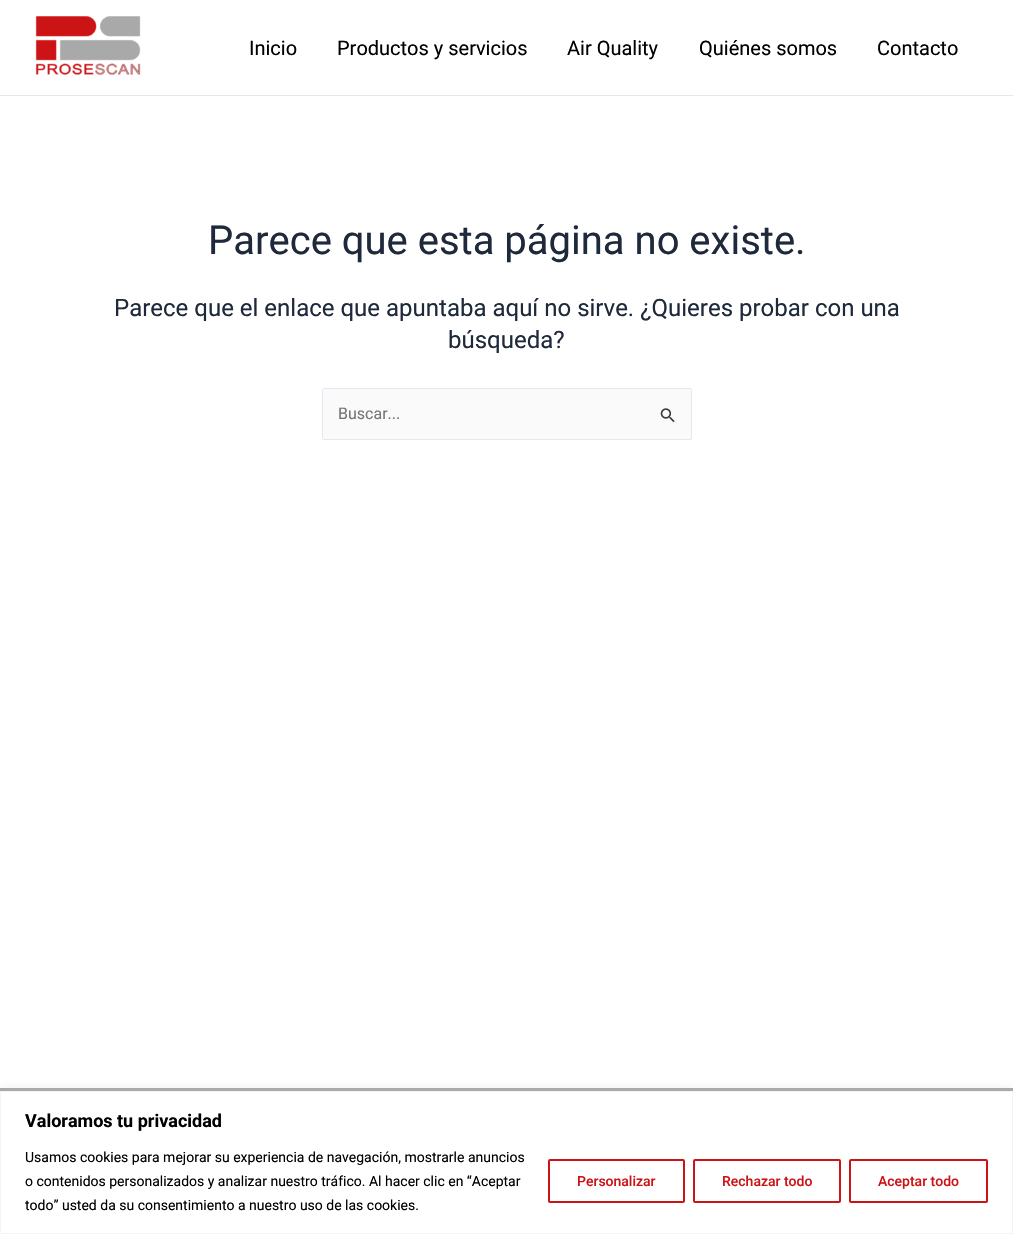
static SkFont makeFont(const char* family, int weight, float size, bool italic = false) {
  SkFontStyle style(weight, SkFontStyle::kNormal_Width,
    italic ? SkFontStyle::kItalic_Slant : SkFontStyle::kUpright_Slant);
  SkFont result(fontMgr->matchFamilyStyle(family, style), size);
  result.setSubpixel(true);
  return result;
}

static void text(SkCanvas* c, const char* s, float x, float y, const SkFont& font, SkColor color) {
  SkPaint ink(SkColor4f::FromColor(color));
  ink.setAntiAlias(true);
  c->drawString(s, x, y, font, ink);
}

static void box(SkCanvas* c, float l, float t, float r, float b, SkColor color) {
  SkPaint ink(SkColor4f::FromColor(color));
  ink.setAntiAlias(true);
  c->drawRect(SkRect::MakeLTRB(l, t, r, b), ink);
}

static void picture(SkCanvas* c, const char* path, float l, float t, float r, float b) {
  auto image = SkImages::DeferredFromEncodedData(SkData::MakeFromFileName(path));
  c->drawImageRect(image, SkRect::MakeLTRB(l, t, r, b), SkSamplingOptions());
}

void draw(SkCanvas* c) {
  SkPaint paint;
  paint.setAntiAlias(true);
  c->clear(0xffffffff);
  box(c, 0, 95, 1013, 96, 0xffe2e8f0);
  picture(c, "img_01.png", 35, 16, 141, 75);
  SkFont face1 = makeFont("Roboto", 400, 20);
  text(c, "Inicio", 249, 55, face1, 0xff000000);
  text(c, "Productos y servicios", 337, 55, face1, 0xff000000);
  text(c, "Air Quality", 567, 55, face1, 0xff000000);
  text(c, "Quiénes somos", 699, 55, face1, 0xff000000);
  text(c, "Contacto", 877, 55, face1, 0xff000000);
  SkFont face2 = makeFont("Roboto", 400, 40);
  text(c, "Parece que esta página no existe.", 208, 254, face2, 0xff1e293b);
  SkFont face3 = makeFont("Roboto", 400, 24);
  text(c, "Parece que el enlace que apuntaba aquí no sirve. ¿Quieres probar con una", 114, 316, face3, 0xff1e293b);
  text(c, "búsqueda?", 448, 348, face3, 0xff1e293b);
  paint.setColor(0xfffafafa);
  c->drawRoundRect(SkRect::MakeLTRB(322.5f, 388.5f, 691.5f, 439.5f), 1.5f, 1.5f, paint);
  paint.setStyle(SkPaint::kStroke_Style);
  paint.setStrokeWidth(1);
  paint.setColor(0xffe2e8f0);
  c->drawRoundRect(SkRect::MakeLTRB(322.5f, 388.5f, 691.5f, 439.5f), 1.5f, 1.5f, paint);
  SkFont face4 = makeFont("Roboto", 400, 16);
  text(c, "Buscar...", 338, 419, face4, 0xff757575);
  picture(c, "img_02.png", 660, 408, 675, 423);
  box(c, 0, 1088, 1013, 1091, 0xffa9a9aa);
  paint.setStyle(SkPaint::kFill_Style);
  paint.setColor(0x4dacabab);
  paint.setMaskFilter(SkMaskFilter::MakeBlur(kNormal_SkBlurStyle, 5));
  c->drawRect(SkRect::MakeLTRB(0, 1090, 1013, 1233), paint);
  paint.setMaskFilter(nullptr);
  paint.setColor(0xffffffff);
  c->drawRect(SkRect::MakeLTRB(0.5f, 1091.5f, 1012.5f, 1233.5f), paint);
  paint.setStyle(SkPaint::kStroke_Style);
  paint.setColor(0xfff4f4f4);
  c->drawRect(SkRect::MakeLTRB(0.5f, 1091.5f, 1012.5f, 1233.5f), paint);
  SkFont face5 = makeFont("Roboto", 700, 18);
  text(c, "Valoramos tu privacidad", 25, 1127, face5, 0xff000000);
  SkFont face6 = makeFont("Roboto", 400, 14);
  text(c, "Usamos cookies para mejorar su experiencia de navegación, mostrarle anuncios", 25, 1162, face6, 0xff000000);
  text(c, "o contenidos personalizados y analizar nuestro tráfico. Al hacer clic en “Aceptar", 25, 1186, face6, 0xff000000);
  text(c, "todo” usted da su consentimiento a nuestro uso de las cookies.", 25, 1210, face6, 0xff000000);
  paint.setStrokeWidth(2);
  paint.setColor(0xffcc1417);
  c->drawRoundRect(SkRect::MakeLTRB(549, 1160, 684, 1202), 1, 1, paint);
  SkFont face7 = makeFont("Roboto", 500, 14);
  text(c, "Personalizar", 577, 1186, face7, 0xffcc1417);
  c->drawRoundRect(SkRect::MakeLTRB(694, 1160, 840, 1202), 1, 1, paint);
  text(c, "Rechazar todo", 722, 1186, face7, 0xffcc1417);
  c->drawRoundRect(SkRect::MakeLTRB(850, 1160, 987, 1202), 1, 1, paint);
  text(c, "Aceptar todo", 878, 1186, face7, 0xffcc1417);
}
